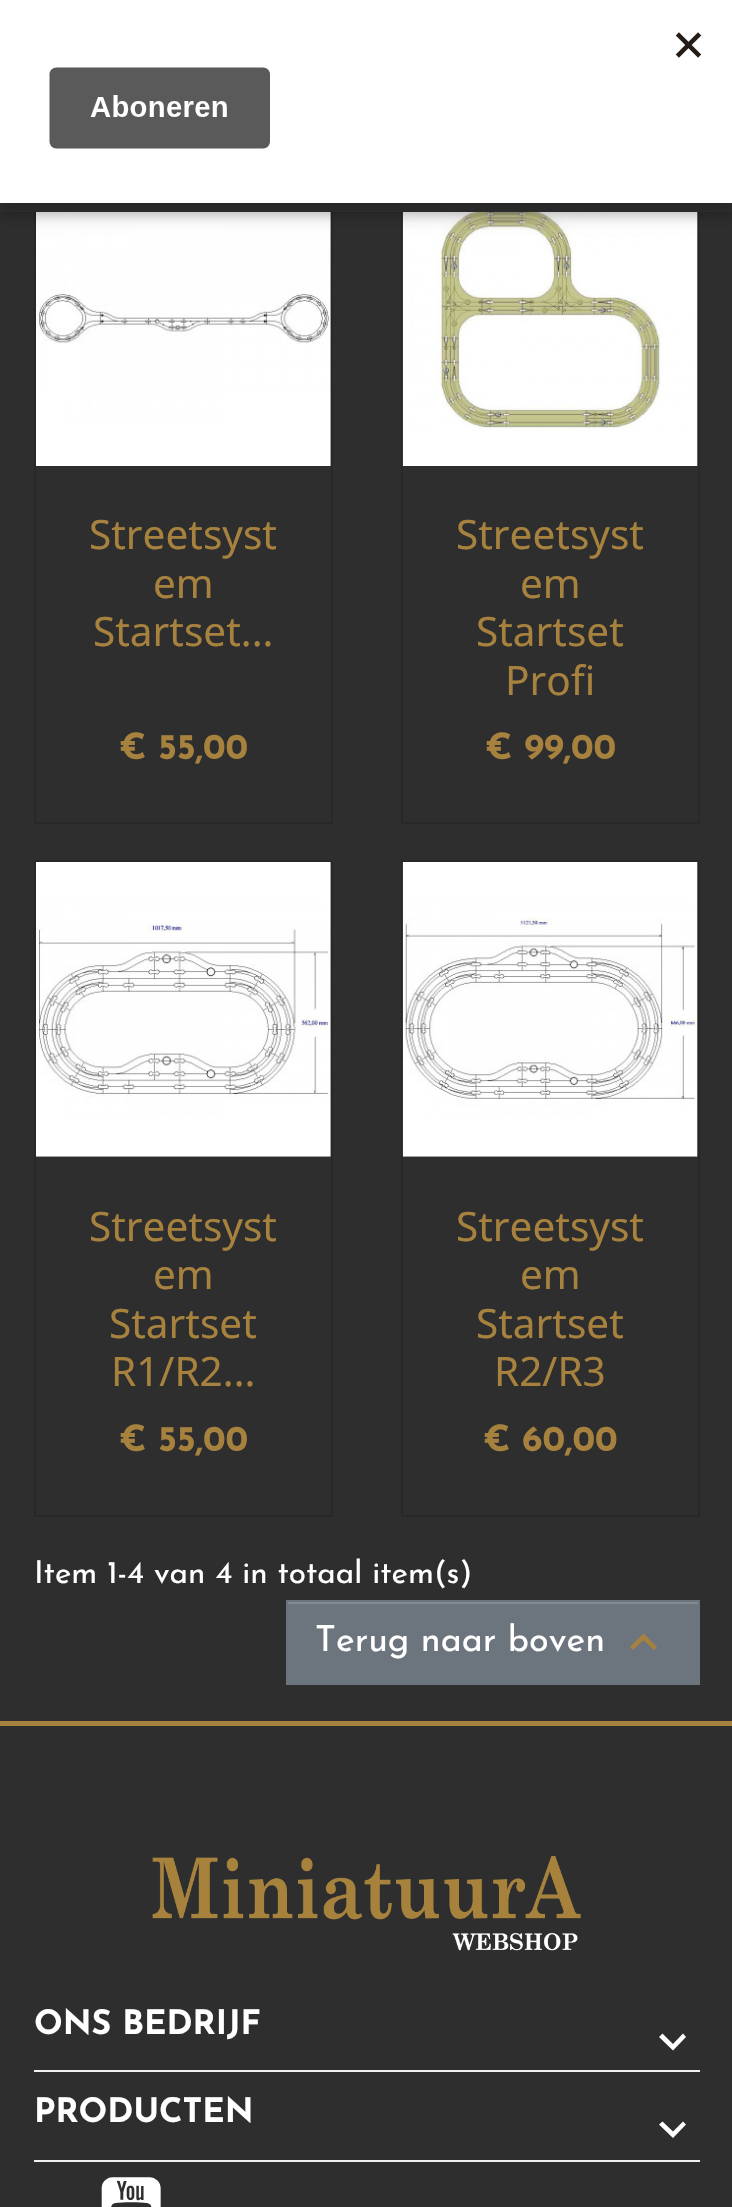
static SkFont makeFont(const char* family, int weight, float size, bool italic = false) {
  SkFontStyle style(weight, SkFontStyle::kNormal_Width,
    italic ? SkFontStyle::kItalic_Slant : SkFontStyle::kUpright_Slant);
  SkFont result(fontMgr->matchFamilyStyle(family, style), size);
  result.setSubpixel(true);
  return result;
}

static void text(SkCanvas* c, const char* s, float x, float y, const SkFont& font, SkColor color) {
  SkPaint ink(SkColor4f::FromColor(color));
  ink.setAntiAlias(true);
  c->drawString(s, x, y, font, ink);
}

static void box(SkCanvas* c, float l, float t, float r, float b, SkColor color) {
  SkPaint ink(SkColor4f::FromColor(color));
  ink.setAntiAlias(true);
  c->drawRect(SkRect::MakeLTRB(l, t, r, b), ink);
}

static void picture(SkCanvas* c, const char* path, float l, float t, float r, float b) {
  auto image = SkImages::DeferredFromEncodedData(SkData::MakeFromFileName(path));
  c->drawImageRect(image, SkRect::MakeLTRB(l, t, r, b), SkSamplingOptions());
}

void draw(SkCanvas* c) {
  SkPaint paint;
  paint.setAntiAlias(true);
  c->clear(0xff2e2e2e);
  paint.setStyle(SkPaint::kStroke_Style);
  paint.setStrokeWidth(2);
  paint.setColor(0xff282828);
  c->drawRect(SkRect::MakeLTRB(35, 170, 332, 823), paint);
  picture(c, "img_02.png", 36, 212, 331, 466);
  c->drawRect(SkRect::MakeLTRB(402, 170, 699, 823), paint);
  picture(c, "img_03.png", 402, 212, 698, 466);
  paint.setStyle(SkPaint::kFill_Style);
  paint.setColor(0x33000000);
  paint.setMaskFilter(SkMaskFilter::MakeBlur(kNormal_SkBlurStyle, 7));
  c->drawRect(SkRect::MakeLTRB(0, 5, 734, 216), paint);
  paint.setMaskFilter(nullptr);
  box(c, 0, 203, 732, 212, 0xff2e2e2e);
  paint.setMaskFilter(SkMaskFilter::MakeBlur(kNormal_SkBlurStyle, 7));
  c->drawRect(SkRect::MakeLTRB(0, 7, 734, 209), paint);
  paint.setMaskFilter(nullptr);
  box(c, 0, 0, 732, 203, 0xffffffff);
  picture(c, "img_01.png", 49, 32, 702, 149);
  SkFont face1 = makeFont("Noto Sans", 400, 40.5f);
  text(c, "Streetsyst", 89, 549, face1, 0xffa7823e);
  text(c, "em", 153, 598, face1, 0xffa7823e);
  text(c, "Startset...", 93, 646, face1, 0xffa7823e);
  SkFont face2 = makeFont("Josefin Sans", 700, 36);
  text(c, "€ 55,00", 119, 759, face2, 0xffa7823e);
  text(c, "Streetsyst", 456, 549, face1, 0xffa7823e);
  text(c, "em", 520, 598, face1, 0xffa7823e);
  text(c, "Startset", 476, 646, face1, 0xffa7823e);
  text(c, "Profi", 505, 695, face1, 0xffa7823e);
  text(c, "€ 99,00", 485, 759, face2, 0xffa7823e);
  paint.setStyle(SkPaint::kStroke_Style);
  paint.setColor(0xff282828);
  c->drawRect(SkRect::MakeLTRB(35, 861, 332, 1516), paint);
  picture(c, "img_04.png", 36, 862, 331, 1157);
  text(c, "Streetsyst", 89, 1241, face1, 0xffa7823e);
  text(c, "em", 153, 1289, face1, 0xffa7823e);
  text(c, "Startset", 109, 1338, face1, 0xffa7823e);
  text(c, "R1/R2...", 111, 1386, face1, 0xffa7823e);
  text(c, "€ 55,00", 119, 1451, face2, 0xffa7823e);
  c->drawRect(SkRect::MakeLTRB(402, 861, 699, 1516), paint);
  picture(c, "img_05.png", 402, 862, 698, 1157);
  text(c, "Streetsyst", 456, 1241, face1, 0xffa7823e);
  text(c, "em", 520, 1289, face1, 0xffa7823e);
  text(c, "Startset", 476, 1338, face1, 0xffa7823e);
  text(c, "R2/R3", 494, 1386, face1, 0xffa7823e);
  text(c, "€ 60,00", 483, 1451, face2, 0xffa7823e);
  SkFont face3 = makeFont("Josefin Sans", 400, 31.5f);
  text(c, "Item 1-4 van 4 in totaal item(s)", 34, 1583, face3, 0xffffffff);
  box(c, 286, 1600, 700, 1685, 0xff6c757d);
  box(c, 288, 1602, 698, 1604, 0xff828a91);
  SkFont face4 = makeFont("Josefin Sans", 400, 36);
  text(c, "Terug naar boven", 315, 1651, face4, 0xffffffff);
  paint.setStyle(SkPaint::kFill_Style);
  paint.setColor(0xffa7823e);
  c->drawPath(SkPathBuilder().moveTo(633, 1650).lineTo(630, 1647).lineTo(643.5f, 1633.5f).lineTo(657, 1647).lineTo(654, 1650).lineTo(643.5f, 1640).close().detach(), paint);
  box(c, 0, 1721, 732, 1726, 0xffa7823e);
  picture(c, "img_06.png", 152, 1856, 581, 1951);
  box(c, 34, 2070, 700, 2072, 0xfff1f1f1);
  SkFont face5 = makeFont("Josefin Sans", 700, 33.75f);
  text(c, "ONS BEDRIJF", 34, 2034, face5, 0xffffffff);
  paint.setColor(0xffffffff);
  c->drawPath(SkPathBuilder().moveTo(662.5f, 2033.5f).lineTo(673, 2044).lineTo(683, 2033.5f).lineTo(686, 2037).lineTo(673, 2050.5f).lineTo(659, 2037).close().detach(), paint);
  box(c, 34, 2160, 700, 2162, 0xfff1f1f1);
  text(c, "PRODUCTEN", 34, 2122, face5, 0xffffffff);
  c->drawPath(SkPathBuilder().moveTo(662.5f, 2121.5f).lineTo(673, 2131.5f).lineTo(683, 2121.5f).lineTo(686, 2124.5f).lineTo(673, 2138).lineTo(659, 2124.5f).close().detach(), paint);
  picture(c, "img_07.png", 101, 2177, 161, 2207);
}
